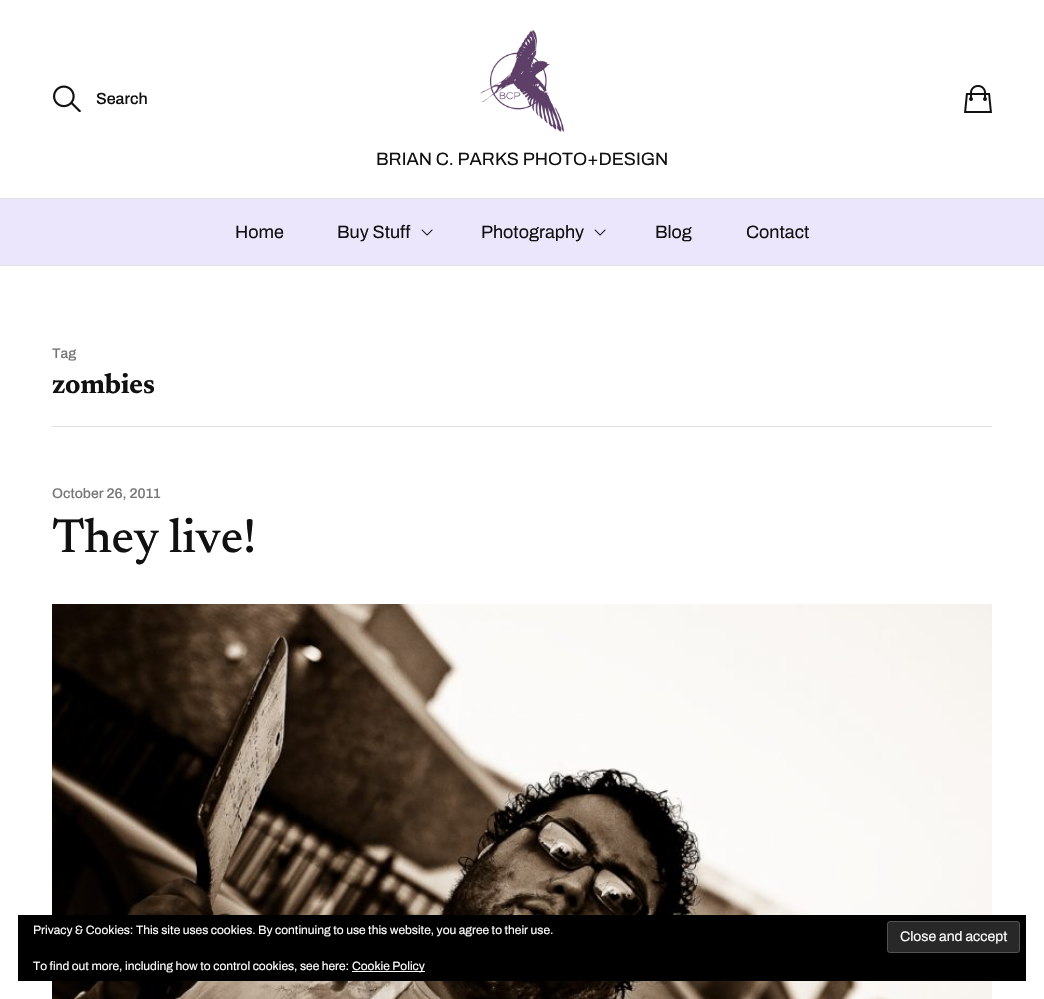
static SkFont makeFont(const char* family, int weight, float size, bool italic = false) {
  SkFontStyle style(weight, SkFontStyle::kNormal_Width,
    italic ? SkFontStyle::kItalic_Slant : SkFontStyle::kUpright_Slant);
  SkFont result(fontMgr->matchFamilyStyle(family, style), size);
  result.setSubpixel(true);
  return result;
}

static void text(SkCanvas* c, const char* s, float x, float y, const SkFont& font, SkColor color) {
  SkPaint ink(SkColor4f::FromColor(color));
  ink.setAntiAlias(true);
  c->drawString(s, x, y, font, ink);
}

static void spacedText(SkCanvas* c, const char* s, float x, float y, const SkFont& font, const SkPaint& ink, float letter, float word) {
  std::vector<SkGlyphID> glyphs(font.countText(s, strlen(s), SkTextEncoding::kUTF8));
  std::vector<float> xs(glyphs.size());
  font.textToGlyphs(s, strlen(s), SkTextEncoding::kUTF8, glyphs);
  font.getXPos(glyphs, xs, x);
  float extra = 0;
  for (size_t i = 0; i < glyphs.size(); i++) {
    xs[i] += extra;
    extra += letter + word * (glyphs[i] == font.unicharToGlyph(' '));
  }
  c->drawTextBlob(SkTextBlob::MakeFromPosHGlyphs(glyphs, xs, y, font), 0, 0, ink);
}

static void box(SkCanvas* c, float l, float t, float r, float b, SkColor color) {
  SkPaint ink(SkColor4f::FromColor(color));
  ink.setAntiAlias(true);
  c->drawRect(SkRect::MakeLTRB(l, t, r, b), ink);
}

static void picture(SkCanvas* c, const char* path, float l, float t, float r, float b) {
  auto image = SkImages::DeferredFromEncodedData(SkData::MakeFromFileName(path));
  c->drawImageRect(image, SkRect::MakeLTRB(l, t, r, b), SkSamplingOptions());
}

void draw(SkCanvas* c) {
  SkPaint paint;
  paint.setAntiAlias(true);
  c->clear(0xffffffff);
  box(c, 0, 265, 1044, 266, 0xffe1e1e5);
  picture(c, "img_01.png", 53, 85, 81, 112);
  SkFont face1 = makeFont("Archivo", 600, 16);
  text(c, "Search", 96, 104, face1, 0xff111111);
  picture(c, "img_02.png", 480, 30, 565, 132);
  picture(c, "img_03.png", 964, 85, 992, 113);
  SkFont face2 = makeFont("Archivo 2", 600, 18);
  text(c, "BRIAN C. PARKS PHOTO+DESIGN", 376, 165, face2, 0xff111111);
  box(c, 0, 199, 1044, 265, 0xffece6fc);
  box(c, 0, 198, 1044, 199, 0xffe1e1e5);
  text(c, "Home", 235, 238, face2, 0xff111111);
  text(c, "Buy Stuff", 337, 238, face2, 0xff111111);
  picture(c, "img_04.png", 421, 229, 433, 236);
  text(c, "Photography", 481, 238, face2, 0xff111111);
  picture(c, "img_04.png", 594, 229, 606, 236);
  text(c, "Blog", 655, 238, face2, 0xff111111);
  text(c, "Contact", 746, 238, face2, 0xff111111);
  box(c, 52, 426, 992, 427, 0xffe1e1e5);
  SkFont face3 = makeFont("Archivo", 600, 14);
  text(c, "Tag", 52, 358, face3, 0xff767676);
  SkFont face4 = makeFont("Newsreader", 700, 28);
  paint.setColor(0xff111111);
  spacedText(c, "zombies", 52, 393, face4, paint, -0.25f, 0);
  text(c, "October 26, 2011", 52, 498, face3, 0xff767676);
  SkFont face5 = makeFont("Newsreader", 500, 48);
  spacedText(c, "They live!", 52, 552, face5, paint, -0.5f, 0);
  picture(c, "img_05.png", 52, 604, 992, 999);
  box(c, 18, 915, 1026, 981, 0xff000000);
  SkFont face6 = makeFont("Archivo 2", 600, 12);
  text(c, "Privacy & Cookies: This site uses cookies. By continuing to use this website, you agree to their use.", 33, 934, face6, 0xffffffff);
  paint.setColor(0xff282828);
  c->drawRoundRect(SkRect::MakeLTRB(887.5f, 921.5f, 1019.5f, 952.5f), 2.5f, 2.5f, paint);
  paint.setStyle(SkPaint::kStroke_Style);
  paint.setStrokeWidth(1);
  paint.setColor(0xff535353);
  c->drawRoundRect(SkRect::MakeLTRB(887.5f, 921.5f, 1019.5f, 952.5f), 2.5f, 2.5f, paint);
  SkFont face7 = makeFont("Archivo 2", 600, 14);
  text(c, "Close and accept", 900, 941, face7, 0xffffffff);
  text(c, "To find out more, including how to control cookies, see here:", 33, 970, face6, 0xffffffff);
  box(c, 352, 971, 425, 972, 0xffffffff);
  text(c, "Cookie Policy", 352, 970, face6, 0xffffffff);
}
